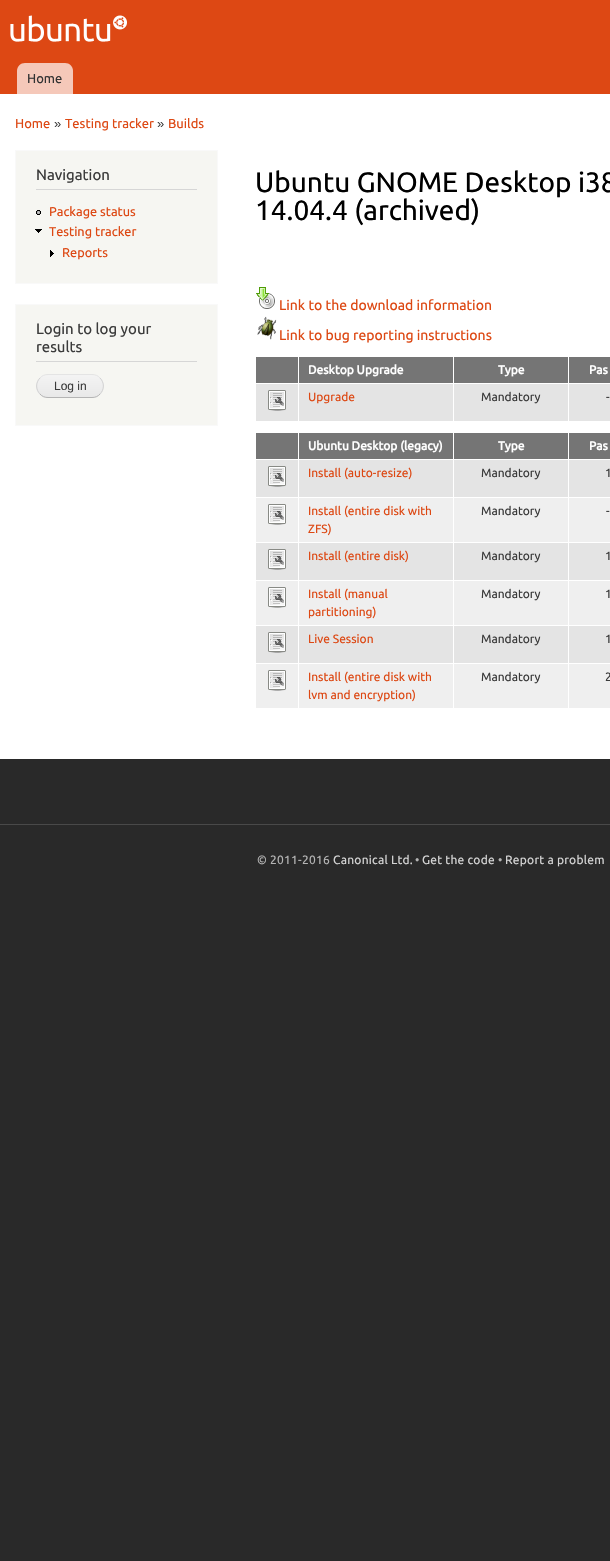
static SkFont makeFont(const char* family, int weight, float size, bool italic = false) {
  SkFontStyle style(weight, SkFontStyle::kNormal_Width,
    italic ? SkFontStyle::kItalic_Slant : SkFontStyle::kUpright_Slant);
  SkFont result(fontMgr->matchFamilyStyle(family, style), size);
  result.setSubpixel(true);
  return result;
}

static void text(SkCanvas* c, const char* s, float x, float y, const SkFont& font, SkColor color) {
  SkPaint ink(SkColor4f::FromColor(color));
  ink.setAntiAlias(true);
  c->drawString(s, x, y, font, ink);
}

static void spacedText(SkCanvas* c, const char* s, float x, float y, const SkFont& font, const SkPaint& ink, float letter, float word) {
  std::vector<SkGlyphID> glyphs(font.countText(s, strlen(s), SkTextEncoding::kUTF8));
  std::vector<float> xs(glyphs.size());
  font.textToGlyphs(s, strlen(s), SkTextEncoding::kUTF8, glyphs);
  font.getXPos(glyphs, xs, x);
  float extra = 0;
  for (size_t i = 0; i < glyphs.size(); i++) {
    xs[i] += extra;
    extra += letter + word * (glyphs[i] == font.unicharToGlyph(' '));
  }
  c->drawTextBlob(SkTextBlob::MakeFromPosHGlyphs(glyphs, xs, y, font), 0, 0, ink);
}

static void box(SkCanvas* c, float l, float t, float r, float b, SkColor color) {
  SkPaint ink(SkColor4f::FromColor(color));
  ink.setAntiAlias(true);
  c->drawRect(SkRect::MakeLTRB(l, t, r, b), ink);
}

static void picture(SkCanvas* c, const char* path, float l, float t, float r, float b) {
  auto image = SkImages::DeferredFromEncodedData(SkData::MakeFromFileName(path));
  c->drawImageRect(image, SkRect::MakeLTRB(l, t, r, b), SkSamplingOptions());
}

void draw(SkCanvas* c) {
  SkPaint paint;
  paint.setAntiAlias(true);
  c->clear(0xff292929);
  box(c, 0, 94, 610, 759, 0xffffffff);
  box(c, 0, 0, 610, 94, 0xffdd4814);
  picture(c, "img_01.png", 10, 15, 127, 42);
  paint.setColor(0xfff5c8b9);
  c->drawPath(SkPathBuilder().moveTo(25, 63).lineTo(65, 63).cubicTo(69.5f, 63, 73, 66.5f, 73, 71).lineTo(73, 94).lineTo(17, 94).lineTo(17, 71).cubicTo(17, 66.5f, 20.5f, 63, 25, 63).close().detach(), paint);
  SkFont face1 = makeFont("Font", 400, 13);
  text(c, "Home", 27, 83, face1, 0xff333333);
  text(c, "Home", 15, 128, face1, 0xffdd4813);
  SkFont face2 = makeFont("Liberation Sans", 400, 13);
  text(c, "»", 54, 128, face2, 0xff3b3b3b);
  text(c, "Testing tracker", 65, 128, face1, 0xffdd4813);
  text(c, "»", 157, 128, face2, 0xff3b3b3b);
  text(c, "Builds", 168, 128, face1, 0xffdd4813);
  paint.setColor(0xfff6f6f2);
  c->drawRect(SkRect::MakeLTRB(15.5f, 150.5f, 217.5f, 283.5f), paint);
  paint.setStyle(SkPaint::kStroke_Style);
  paint.setStrokeWidth(1);
  paint.setColor(0xfff9f9f9);
  c->drawRect(SkRect::MakeLTRB(15.5f, 150.5f, 217.5f, 283.5f), paint);
  box(c, 36, 189, 197, 190, 0xffd6d6d6);
  SkFont face3 = makeFont("Font", 400, 15);
  text(c, "Navigation", 36, 180, face3, 0xff3b3b3b);
  picture(c, "img_02.png", 36, 210, 41, 215);
  SkFont face4 = makeFont("Font", 400, 12.75f);
  text(c, "Package status", 49, 216, face4, 0xffdd4813);
  picture(c, "img_03.png", 35, 229, 42, 233);
  text(c, "Testing tracker", 49, 236, face4, 0xffdd4813);
  picture(c, "img_04.png", 50, 250, 54, 257);
  text(c, "Reports", 62, 257, face4, 0xffdd4813);
  paint.setStyle(SkPaint::kFill_Style);
  paint.setColor(0xfff6f6f2);
  c->drawRect(SkRect::MakeLTRB(15.5f, 304.5f, 217.5f, 425.5f), paint);
  paint.setStyle(SkPaint::kStroke_Style);
  paint.setColor(0xfff9f9f9);
  c->drawRect(SkRect::MakeLTRB(15.5f, 304.5f, 217.5f, 425.5f), paint);
  box(c, 36, 361, 197, 362, 0xffd6d6d6);
  text(c, "Login to log your", 36, 334, face3, 0xff3b3b3b);
  text(c, "results", 36, 352, face3, 0xff3b3b3b);
  picture(c, "img_05.png", 36, 375, 104, 398);
  paint.setColor(0xffe4e4e4);
  c->drawPath(SkPathBuilder().moveTo(40, 378).cubicTo(42, 375.5f, 45, 374.5f, 48, 374.5f).lineTo(92, 374.5f).cubicTo(95, 374.5f, 98, 375.5f, 100, 378).detach(), paint);
  paint.setColor(0xffd2d2d2);
  c->drawPath(SkPathBuilder().moveTo(100, 378).cubicTo(104.5f, 382.5f, 104.5f, 389.5f, 100, 394).detach(), paint);
  paint.setColor(0xffb4b4b4);
  c->drawPath(SkPathBuilder().moveTo(100, 394).cubicTo(98, 396.5f, 95, 397.5f, 92, 397.5f).lineTo(48, 397.5f).cubicTo(45, 397.5f, 42, 396.5f, 40, 394).detach(), paint);
  paint.setColor(0xffd2d2d2);
  c->drawPath(SkPathBuilder().moveTo(40, 394).cubicTo(35.5f, 389.5f, 35.5f, 382.5f, 40, 378).detach(), paint);
  SkFont face5 = makeFont("Liberation Sans", 400, 12);
  text(c, "Log in", 54, 390, face5, 0xff3b3b3b);
  SkFont face6 = makeFont("Font", 400, 28);
  text(c, "Ubuntu GNOME Desktop i38", 255, 192, face6, 0xff000000);
  text(c, "14.04.4 (archived)", 255, 220, face6, 0xff000000);
  picture(c, "img_06.png", 256, 287, 275, 309);
  SkFont face7 = makeFont("Font", 400, 14);
  text(c, "Link to the download information", 279, 310, face7, 0xffdd4813);
  picture(c, "img_07.png", 257, 316, 277, 340);
  text(c, "Link to bug reporting instructions", 279, 340, face7, 0xffdd4813);
  box(c, 256, 357, 298, 383, 0xff757575);
  box(c, 299, 357, 453, 383, 0xff757575);
  SkFont face8 = makeFont("Font", 700, 12);
  text(c, "Desktop Upgrade", 308, 374, face8, 0xffffffff);
  box(c, 454, 357, 568, 383, 0xff757575);
  text(c, "Type", 498, 374, face8, 0xffffffff);
  box(c, 569, 357, 610, 383, 0xff757575);
  text(c, "Pas", 589, 374, face8, 0xffffffff);
  box(c, 256, 384, 610, 421, 0xffe4e4e4);
  picture(c, "img_08.png", 268, 390, 286, 411);
  box(c, 298, 383, 299, 422, 0xffffffff);
  SkFont face9 = makeFont("Font", 400, 12);
  text(c, "Upgrade", 308, 401, face9, 0xffdd4813);
  box(c, 453, 383, 454, 422, 0xffffffff);
  text(c, "Mandatory", 481, 401, face9, 0xff3b3b3b);
  box(c, 568, 383, 569, 422, 0xffffffff);
  text(c, "-", 606, 401, face9, 0xff3b3b3b);
  box(c, 256, 433, 298, 459, 0xff757575);
  box(c, 299, 433, 453, 459, 0xff757575);
  text(c, "Ubuntu Desktop (legacy)", 308, 450, face8, 0xffffffff);
  box(c, 454, 433, 568, 459, 0xff757575);
  text(c, "Type", 498, 450, face8, 0xffffffff);
  box(c, 569, 433, 610, 459, 0xff757575);
  text(c, "Pas", 589, 450, face8, 0xffffffff);
  box(c, 256, 460, 610, 497, 0xffe4e4e4);
  picture(c, "img_08.png", 268, 466, 286, 487);
  text(c, "Install (auto-resize)", 308, 477, face9, 0xffdd4813);
  text(c, "Mandatory", 481, 477, face9, 0xff3b3b3b);
  text(c, "1", 605, 477, face9, 0xff3b3b3b);
  box(c, 256, 498, 610, 542, 0xffefefef);
  picture(c, "img_09.png", 268, 504, 286, 525);
  text(c, "Install (entire disk with", 308, 515, face9, 0xffdd4813);
  text(c, "ZFS)", 308, 533, face9, 0xffdd4813);
  text(c, "Mandatory", 481, 515, face9, 0xff3b3b3b);
  text(c, "-", 606, 515, face9, 0xff3b3b3b);
  box(c, 256, 543, 610, 580, 0xffe4e4e4);
  picture(c, "img_08.png", 268, 549, 286, 570);
  text(c, "Install (entire disk)", 308, 560, face9, 0xffdd4813);
  text(c, "Mandatory", 481, 560, face9, 0xff3b3b3b);
  text(c, "1", 605, 560, face9, 0xff3b3b3b);
  box(c, 256, 581, 610, 625, 0xffefefef);
  picture(c, "img_09.png", 268, 587, 286, 608);
  text(c, "Install (manual", 308, 598, face9, 0xffdd4813);
  text(c, "partitioning)", 308, 616, face9, 0xffdd4813);
  text(c, "Mandatory", 481, 598, face9, 0xff3b3b3b);
  text(c, "1", 605, 598, face9, 0xff3b3b3b);
  box(c, 256, 626, 610, 663, 0xffe4e4e4);
  picture(c, "img_08.png", 268, 632, 286, 653);
  text(c, "Live Session", 308, 643, face9, 0xffdd4813);
  text(c, "Mandatory", 481, 643, face9, 0xff3b3b3b);
  text(c, "1", 605, 643, face9, 0xff3b3b3b);
  box(c, 256, 664, 610, 708, 0xffefefef);
  picture(c, "img_09.png", 268, 670, 286, 691);
  box(c, 298, 459, 299, 709, 0xffffffff);
  text(c, "Install (entire disk with", 308, 681, face9, 0xffdd4813);
  text(c, "lvm and encryption)", 308, 699, face9, 0xffdd4813);
  box(c, 453, 459, 454, 709, 0xffffffff);
  text(c, "Mandatory", 481, 681, face9, 0xff3b3b3b);
  box(c, 568, 459, 569, 709, 0xffffffff);
  text(c, "2", 605, 681, face9, 0xff3b3b3b);
  box(c, 0, 824, 610, 825, 0xff494949);
  paint.setStyle(SkPaint::kFill_Style);
  paint.setColor(0xffb4b4b4);
  spacedText(c, "© 2011-2016", 257, 864, face9, paint, 0.25f, 0);
  paint.setColor(0xffd4d4d4);
  spacedText(c, "Canonical Ltd.", 333, 864, face9, paint, 0.25f, 0);
  paint.setColor(0xffb4b4b4);
  spacedText(c, "•", 415, 864, face9, paint, 0.25f, 0);
  paint.setColor(0xffd4d4d4);
  spacedText(c, "Get the code", 422, 864, face9, paint, 0.25f, 0);
  paint.setColor(0xffb4b4b4);
  spacedText(c, "•", 498, 864, face9, paint, 0.25f, 0);
  paint.setColor(0xffd4d4d4);
  spacedText(c, "Report a problem", 505, 864, face9, paint, 0.25f, 0);
}
